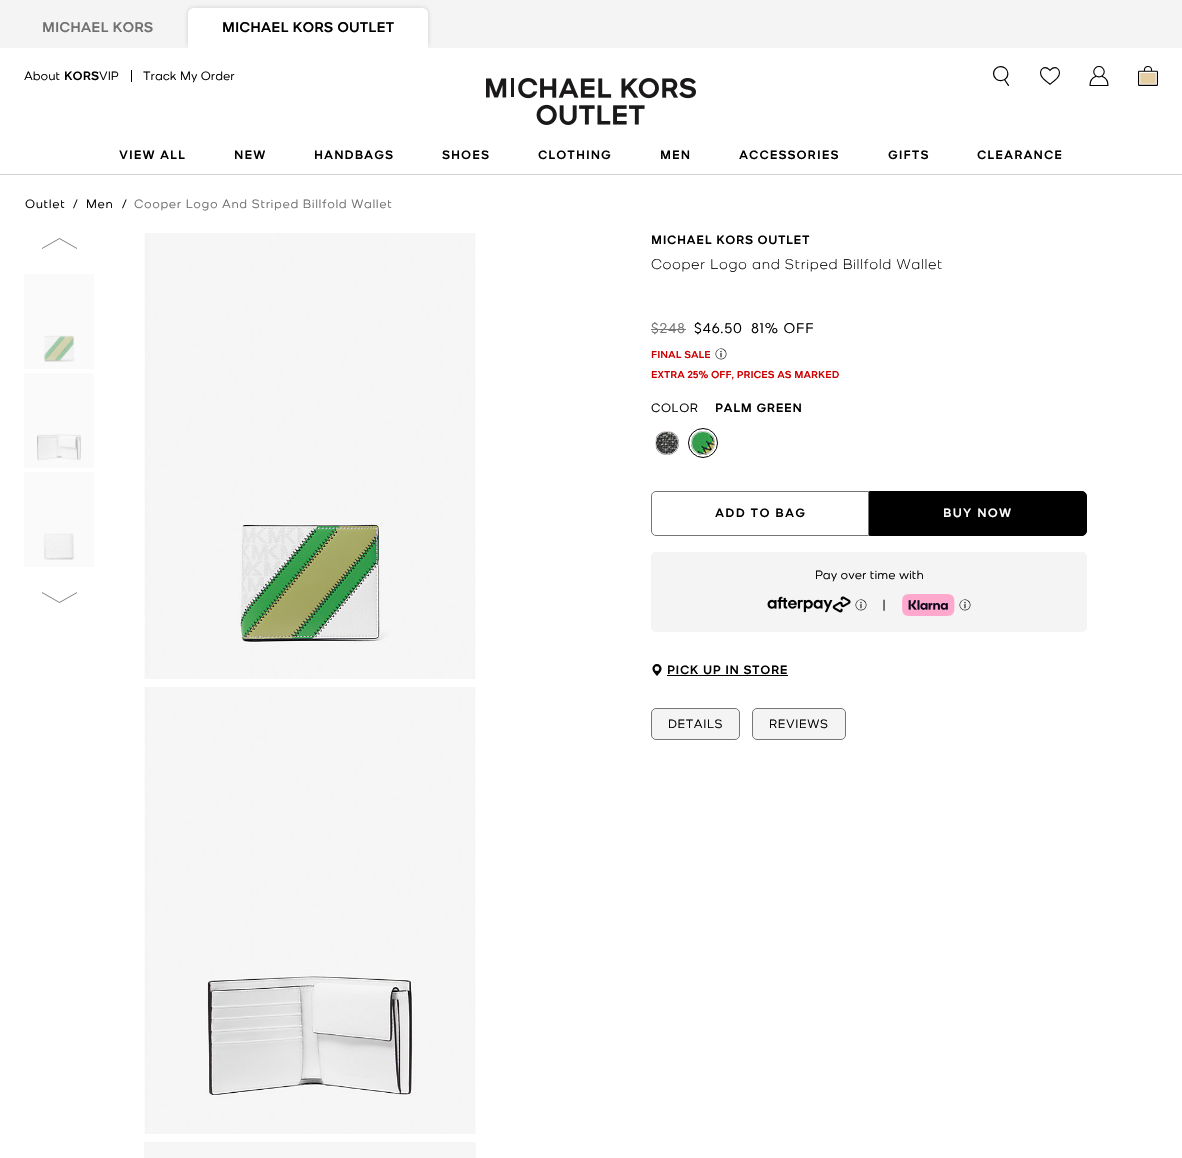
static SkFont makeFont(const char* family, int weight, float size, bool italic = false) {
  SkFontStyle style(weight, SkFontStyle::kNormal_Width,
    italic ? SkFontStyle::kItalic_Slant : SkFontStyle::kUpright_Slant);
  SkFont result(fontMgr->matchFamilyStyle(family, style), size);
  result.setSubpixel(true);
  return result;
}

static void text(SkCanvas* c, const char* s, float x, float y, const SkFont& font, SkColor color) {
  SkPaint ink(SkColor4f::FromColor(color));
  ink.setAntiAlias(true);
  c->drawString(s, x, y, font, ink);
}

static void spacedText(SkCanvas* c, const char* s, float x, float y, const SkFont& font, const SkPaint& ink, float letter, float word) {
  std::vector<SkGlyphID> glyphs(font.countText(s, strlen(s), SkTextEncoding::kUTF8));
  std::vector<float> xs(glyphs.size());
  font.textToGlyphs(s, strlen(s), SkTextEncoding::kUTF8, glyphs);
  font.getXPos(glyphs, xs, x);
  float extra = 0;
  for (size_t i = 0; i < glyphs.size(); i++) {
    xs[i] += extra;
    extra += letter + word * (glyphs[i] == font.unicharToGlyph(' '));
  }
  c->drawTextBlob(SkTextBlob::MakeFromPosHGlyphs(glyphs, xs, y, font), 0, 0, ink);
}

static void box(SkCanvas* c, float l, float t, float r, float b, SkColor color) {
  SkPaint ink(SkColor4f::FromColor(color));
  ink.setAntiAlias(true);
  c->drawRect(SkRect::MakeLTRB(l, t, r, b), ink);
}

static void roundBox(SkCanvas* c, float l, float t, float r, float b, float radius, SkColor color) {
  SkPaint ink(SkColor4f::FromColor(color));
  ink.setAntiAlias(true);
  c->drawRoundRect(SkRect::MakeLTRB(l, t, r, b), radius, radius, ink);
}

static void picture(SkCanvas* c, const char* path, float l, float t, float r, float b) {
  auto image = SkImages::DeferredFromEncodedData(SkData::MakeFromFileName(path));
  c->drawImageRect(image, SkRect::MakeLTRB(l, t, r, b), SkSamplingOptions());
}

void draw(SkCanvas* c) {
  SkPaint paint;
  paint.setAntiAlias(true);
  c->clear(0xffffffff);
  box(c, 0, 174, 1182, 175, 0xffd1d1d1);
  box(c, 0, 0, 1182, 48, 0xfff4f4f4);
  SkFont face1 = makeFont("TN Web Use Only", 500, 14);
  text(c, "MICHAEL KORS", 42, 32, face1, 0xff707070);
  c->save();
  c->clipRect(SkRect::MakeLTRB(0, 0, 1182, 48));
  paint.setColor(0x29000000);
  paint.setMaskFilter(SkMaskFilter::MakeBlur(kNormal_SkBlurStyle, 2));
  c->drawRoundRect(SkRect::MakeLTRB(188, 8, 428, 48), 6, 6, paint);
  paint.setMaskFilter(nullptr);
  c->restore();
  paint.setColor(0xffffffff);
  c->drawPath(SkPathBuilder().moveTo(194, 8).lineTo(422, 8).cubicTo(425.5f, 8, 428, 10.5f, 428, 14).lineTo(428, 48).lineTo(188, 48).lineTo(188, 14).cubicTo(188, 10.5f, 190.5f, 8, 194, 8).close().detach(), paint);
  text(c, "MICHAEL KORS OUTLET", 222, 32, face1, 0xff000000);
  SkFont face2 = makeFont("TN Web Use Only", 300, 12);
  text(c, "About", 24, 80, face2, 0xff000000);
  SkFont face3 = makeFont("TN Web Use Only", 500, 12);
  text(c, "KORS", 64, 80, face3, 0xff000000);
  text(c, "VIP", 99, 80, face2, 0xff000000);
  box(c, 131, 70, 132, 82, 0xff000000);
  text(c, "Track My Order", 143, 80, face2, 0xff000000);
  picture(c, "img_01.png", 486, 78, 696, 125);
  picture(c, "img_02.png", 992, 66, 1009, 86);
  picture(c, "img_03.png", 1040, 67, 1060, 85);
  picture(c, "img_04.png", 1089, 66, 1109, 86);
  picture(c, "img_05.png", 1138, 66, 1158, 86);
  paint.setColor(0xff000000);
  spacedText(c, "VIEW ALL", 119, 159, face3, paint, 1, 0);
  spacedText(c, "NEW", 234, 159, face3, paint, 1, 0);
  spacedText(c, "HANDBAGS", 314, 159, face3, paint, 1, 0);
  spacedText(c, "SHOES", 442, 159, face3, paint, 1, 0);
  spacedText(c, "CLOTHING", 538, 159, face3, paint, 1, 0);
  spacedText(c, "MEN", 660, 159, face3, paint, 1, 0);
  spacedText(c, "ACCESSORIES", 739, 159, face3, paint, 1, 0);
  spacedText(c, "GIFTS", 888, 159, face3, paint, 1, 0);
  spacedText(c, "CLEARANCE", 977, 159, face3, paint, 1, 0);
  spacedText(c, "Outlet", 25, 208, face2, paint, 0.6f, 0);
  spacedText(c, "/", 73, 208, face2, paint, 0.6f, 0);
  spacedText(c, "Men", 86, 208, face2, paint, 0.6f, 0);
  spacedText(c, "/", 122, 208, face2, paint, 0.6f, 0);
  paint.setColor(0xff707070);
  spacedText(c, "Cooper Logo And Striped Billfold Wallet", 134, 208, face2, paint, 0.6f, 0);
  paint.setColor(0xff808080);
  c->drawPath(SkPathBuilder().moveTo(42, 249).lineTo(59.5f, 239).lineTo(77, 249).lineTo(77, 248).lineTo(59.5f, 238).lineTo(42, 248).close().detach(), paint);
  picture(c, "img_06.png", 24, 274, 94, 369);
  picture(c, "img_07.png", 24, 373, 94, 468);
  picture(c, "img_08.png", 24, 472, 94, 567);
  c->drawPath(SkPathBuilder().moveTo(77, 592).lineTo(59.5f, 602).lineTo(42, 592).lineTo(42, 593).lineTo(59.5f, 603).lineTo(77, 593).close().detach(), paint);
  picture(c, "img_09.png", 144, 233, 476, 679);
  picture(c, "img_10.png", 144, 687, 476, 1134);
  box(c, 144, 1142, 476, 1158, 0xfff6f6f6);
  paint.setColor(0xff000000);
  spacedText(c, "MICHAEL KORS OUTLET", 651, 244, face3, paint, 0.6f, 0);
  SkFont face4 = makeFont("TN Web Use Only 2", 300, 14);
  spacedText(c, "Cooper Logo and Striped Billfold Wallet", 651, 269, face4, paint, 0.6f, 0);
  SkFont face5 = makeFont("TN Web Use Only", 300, 14);
  paint.setColor(0xff767676);
  spacedText(c, "$248", 651, 333, face5, paint, 0.75f, 0);
  box(c, 651, 329, 686, 330, 0xff767676);
  paint.setColor(0xff000000);
  spacedText(c, "$46.50", 694, 333, face5, paint, 0.75f, 0);
  spacedText(c, "81% OFF", 751, 333, face5, paint, 0.75f, 0);
  SkFont face6 = makeFont("TN Web Use Only", 500, 10);
  text(c, "FINAL SALE", 651, 358, face6, 0xffcc0000);
  picture(c, "img_11.png", 715, 348, 727, 360);
  text(c, "EXTRA 25% OFF, PRICES AS MARKED", 651, 378, face6, 0xffcc0000);
  spacedText(c, "COLOR", 651, 412, face2, paint, 0.6f, 0);
  spacedText(c, "PALM GREEN", 715, 412, face3, paint, 0.6f, 0);
  picture(c, "img_12.png", 655, 431, 679, 455);
  paint.setStyle(SkPaint::kStroke_Style);
  paint.setStrokeWidth(1);
  paint.setColor(0xffd9d9d9);
  c->drawCircle(667, 443, 11.5f, paint);
  picture(c, "img_13.png", 691, 431, 715, 455);
  c->drawCircle(703, 443, 11.5f, paint);
  paint.setColor(0xff000000);
  c->drawCircle(703, 443, 14.5f, paint);
  paint.setColor(0xff767676);
  c->drawPath(SkPathBuilder().moveTo(656, 491.5f).lineTo(868.5f, 491.5f).lineTo(868.5f, 535.5f).lineTo(656, 535.5f).cubicTo(653.5f, 535.5f, 651.5f, 533.5f, 651.5f, 531).lineTo(651.5f, 496).cubicTo(651.5f, 493.5f, 653.5f, 491.5f, 656, 491.5f).close().detach(), paint);
  paint.setStyle(SkPaint::kFill_Style);
  paint.setColor(0xff000000);
  spacedText(c, "ADD TO BAG", 715, 517, face3, paint, 1.25f, 0);
  c->drawPath(SkPathBuilder().moveTo(869.5f, 491.5f).lineTo(1082, 491.5f).cubicTo(1084.5f, 491.5f, 1086.5f, 493.5f, 1086.5f, 496).lineTo(1086.5f, 531).cubicTo(1086.5f, 533.5f, 1084.5f, 535.5f, 1082, 535.5f).lineTo(869.5f, 535.5f).close().detach(), paint);
  paint.setStyle(SkPaint::kStroke_Style);
  c->drawPath(SkPathBuilder().moveTo(869.5f, 491.5f).lineTo(1082, 491.5f).cubicTo(1084.5f, 491.5f, 1086.5f, 493.5f, 1086.5f, 496).lineTo(1086.5f, 531).cubicTo(1086.5f, 533.5f, 1084.5f, 535.5f, 1082, 535.5f).lineTo(869.5f, 535.5f).close().detach(), paint);
  paint.setStyle(SkPaint::kFill_Style);
  paint.setColor(0xffffffff);
  spacedText(c, "BUY NOW", 943, 517, face3, paint, 1.25f, 0);
  roundBox(c, 651, 552, 1087, 632, 5, 0xfff4f4f4);
  text(c, "Pay over time with", 815, 579, face2, 0xff000000);
  picture(c, "img_14.png", 767, 596, 851, 613);
  picture(c, "img_15.png", 855, 599, 867, 611);
  text(c, "|", 883, 609, face2, 0xff000000);
  picture(c, "img_16.png", 902, 594, 955, 616);
  picture(c, "img_15.png", 959, 599, 971, 611);
  picture(c, "img_17.png", 652, 664, 662, 676);
  paint.setColor(0xff000000);
  spacedText(c, "PICK UP IN STORE", 667, 674, face3, paint, 0.6f, 0);
  box(c, 667, 675, 788, 676, 0xff000000);
  paint.setColor(0xfff4f4f4);
  c->drawRoundRect(SkRect::MakeLTRB(651.5f, 708.5f, 739.5f, 739.5f), 4.5f, 4.5f, paint);
  paint.setStyle(SkPaint::kStroke_Style);
  paint.setColor(0xff767676);
  c->drawRoundRect(SkRect::MakeLTRB(651.5f, 708.5f, 739.5f, 739.5f), 4.5f, 4.5f, paint);
  paint.setStyle(SkPaint::kFill_Style);
  paint.setColor(0xff000000);
  spacedText(c, "DETAILS", 668, 728, face2, paint, 0.6f, 0);
  paint.setColor(0xfff4f4f4);
  c->drawRoundRect(SkRect::MakeLTRB(752.5f, 708.5f, 845.5f, 739.5f), 4.5f, 4.5f, paint);
  paint.setStyle(SkPaint::kStroke_Style);
  paint.setColor(0xff767676);
  c->drawRoundRect(SkRect::MakeLTRB(752.5f, 708.5f, 845.5f, 739.5f), 4.5f, 4.5f, paint);
  paint.setStyle(SkPaint::kFill_Style);
  paint.setColor(0xff000000);
  spacedText(c, "REVIEWS", 769, 728, face2, paint, 0.6f, 0);
}
